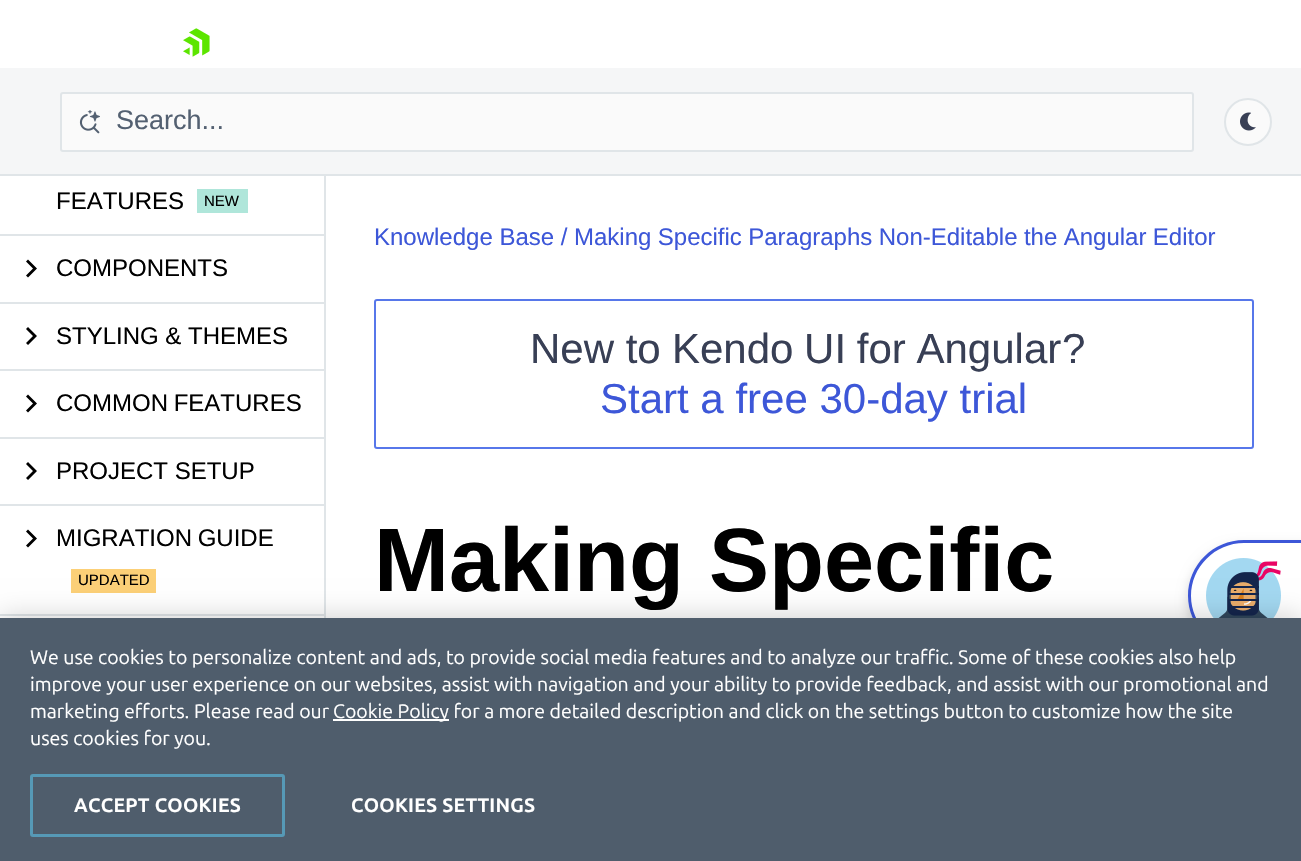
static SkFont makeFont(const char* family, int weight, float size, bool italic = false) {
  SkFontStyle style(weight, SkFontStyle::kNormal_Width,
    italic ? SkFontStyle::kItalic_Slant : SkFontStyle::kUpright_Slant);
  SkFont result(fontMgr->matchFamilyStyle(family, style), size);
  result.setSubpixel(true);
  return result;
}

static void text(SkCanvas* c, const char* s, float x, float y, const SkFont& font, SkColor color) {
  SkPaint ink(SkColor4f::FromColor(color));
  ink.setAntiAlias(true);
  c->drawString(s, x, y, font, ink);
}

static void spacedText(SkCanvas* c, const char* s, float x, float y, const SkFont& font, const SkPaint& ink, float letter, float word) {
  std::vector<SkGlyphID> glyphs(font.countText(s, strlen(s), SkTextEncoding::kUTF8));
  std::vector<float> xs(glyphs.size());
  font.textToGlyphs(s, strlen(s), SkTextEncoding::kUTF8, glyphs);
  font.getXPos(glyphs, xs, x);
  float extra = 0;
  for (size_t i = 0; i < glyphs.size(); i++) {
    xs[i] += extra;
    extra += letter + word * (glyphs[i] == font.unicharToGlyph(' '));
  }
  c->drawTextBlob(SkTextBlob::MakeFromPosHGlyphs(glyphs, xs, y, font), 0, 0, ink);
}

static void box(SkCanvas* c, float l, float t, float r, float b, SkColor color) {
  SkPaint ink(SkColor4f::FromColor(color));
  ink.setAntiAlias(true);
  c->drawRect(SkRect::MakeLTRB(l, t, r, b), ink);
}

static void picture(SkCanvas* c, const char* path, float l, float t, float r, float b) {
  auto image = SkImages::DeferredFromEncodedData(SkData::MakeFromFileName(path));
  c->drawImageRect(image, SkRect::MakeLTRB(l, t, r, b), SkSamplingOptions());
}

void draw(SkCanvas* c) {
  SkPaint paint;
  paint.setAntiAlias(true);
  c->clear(0xffffffff);
  picture(c, "img_01.png", 183, 28, 210, 57);
  box(c, 0, 68, 1301, 174, 0xfff5f6f7);
  box(c, 0, 174, 1301, 176, 0xffe0e5e8);
  paint.setColor(0xfffafafa);
  c->drawRoundRect(SkRect::MakeLTRB(61, 93, 1193, 151), 2, 2, paint);
  paint.setStyle(SkPaint::kStroke_Style);
  paint.setStrokeWidth(2);
  paint.setColor(0xffe0e5e8);
  c->drawRoundRect(SkRect::MakeLTRB(61, 93, 1193, 151), 2, 2, paint);
  picture(c, "img_02.png", 79, 110, 100, 134);
  SkFont face1 = makeFont("Liberation Sans", 400, 27);
  text(c, "Search...", 116, 129, face1, 0xff536071);
  paint.setStyle(SkPaint::kFill_Style);
  paint.setColor(0xfffafafa);
  c->drawCircle(1248, 122, 23, paint);
  paint.setStyle(SkPaint::kStroke_Style);
  paint.setColor(0xffe0e5e8);
  c->drawCircle(1248, 122, 23, paint);
  picture(c, "img_03.png", 1240, 112, 1256, 131);
  box(c, 324, 176, 326, 618, 0xffe0e5e8);
  box(c, 0, 234, 324, 236, 0xffe0e5e8);
  SkFont face2 = makeFont("Liberation Sans", 400, 24);
  text(c, "FEATURES", 56, 209, face2, 0xff000000);
  box(c, 197, 189, 248, 213, 0xffafe6da);
  SkFont face3 = makeFont("Liberation Sans", 400, 15);
  text(c, "NEW", 204, 206, face3, 0xff000000);
  box(c, 0, 302, 324, 304, 0xffe0e5e8);
  paint.setStyle(SkPaint::kFill_Style);
  paint.setColor(0xff000000);
  c->drawPath(SkPathBuilder().moveTo(26, 261.5f).lineTo(33, 268.5f).lineTo(26, 275.5f).lineTo(28, 277.5f).lineTo(37, 268.5f).lineTo(28, 259.5f).close().detach(), paint);
  text(c, "COMPONENTS", 56, 276, face2, 0xff000000);
  box(c, 0, 369, 324, 371, 0xffe0e5e8);
  c->drawPath(SkPathBuilder().moveTo(26, 329).lineTo(33, 336).lineTo(26, 343).lineTo(28, 345).lineTo(37, 336).lineTo(28, 327).close().detach(), paint);
  text(c, "STYLING & THEMES", 56, 344, face2, 0xff000000);
  box(c, 0, 437, 324, 439, 0xffe0e5e8);
  c->drawPath(SkPathBuilder().moveTo(26, 396.5f).lineTo(33, 403.5f).lineTo(26, 410.5f).lineTo(28, 412.5f).lineTo(37, 403.5f).lineTo(28, 394.5f).close().detach(), paint);
  spacedText(c, "COMMON FEATURES", 56, 411, face2, paint, 0, -1);
  box(c, 0, 504, 324, 506, 0xffe0e5e8);
  c->drawPath(SkPathBuilder().moveTo(26, 464).lineTo(33, 471).lineTo(26, 478).lineTo(28, 480).lineTo(37, 471).lineTo(28, 462).close().detach(), paint);
  text(c, "PROJECT SETUP", 56, 479, face2, 0xff000000);
  box(c, 0, 614, 324, 616, 0xffe0e5e8);
  c->drawPath(SkPathBuilder().moveTo(26, 531.5f).lineTo(33, 538.5f).lineTo(26, 545.5f).lineTo(28, 547.5f).lineTo(37, 538.5f).lineTo(28, 529.5f).close().detach(), paint);
  spacedText(c, "MIGRATION GUIDE", 56, 546, face2, paint, 0, -1);
  box(c, 71, 569, 156, 593, 0xfffcd077);
  text(c, "UPDATED", 78, 585, face3, 0xff000000);
  text(c, "Knowledge Base /", 374, 245, face2, 0xff3d57d8);
  paint.setColor(0xff3d57d8);
  spacedText(c, "Making Specific Paragraphs Non-Editable the Angular Editor", 574, 245, face2, paint, 0, -0.25f);
  paint.setStyle(SkPaint::kStroke_Style);
  paint.setColor(0xff5777ea);
  c->drawRoundRect(SkRect::MakeLTRB(375, 300, 1253, 448), 2, 2, paint);
  SkFont face4 = makeFont("Liberation Sans", 400, 42);
  text(c, "New to", 530, 363, face4, 0xff383f55);
  paint.setStyle(SkPaint::kFill_Style);
  paint.setColor(0xff383f55);
  spacedText(c, "Kendo UI for Angular", 672, 363, face4, paint, 0, -1);
  text(c, "?", 1062, 363, face4, 0xff383f55);
  text(c, "Start a free 30-day trial", 600, 413, face4, 0xff3d57d8);
  SkFont face5 = makeFont("Liberation Sans", 700, 90);
  text(c, "Making Specific", 374, 591, face5, 0xff000000);
  paint.setColor(0x29000000);
  paint.setMaskFilter(SkMaskFilter::MakeBlur(kNormal_SkBlurStyle, 6));
  c->drawRoundRect(SkRect::MakeLTRB(1188, 546, 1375, 657), 55.5f, 55.5f, paint);
  paint.setMaskFilter(nullptr);
  paint.setColor(0xffffffff);
  c->drawPath(SkPathBuilder().moveTo(1243.5f, 540).lineTo(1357, 540).lineTo(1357, 651).lineTo(1243.5f, 651).cubicTo(1213, 651, 1188, 626, 1188, 595.5f).cubicTo(1188, 565, 1213, 540, 1243.5f, 540).close().detach(), paint);
  paint.setColor(0xff3d57d8);
  c->drawPath(SkPathBuilder(SkPathFillType::kEvenOdd).moveTo(1244, 540).lineTo(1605, 540).lineTo(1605, 651).lineTo(1244, 651).cubicTo(1213, 651, 1188, 626, 1188, 596).cubicTo(1188, 565, 1213, 540, 1244, 540).close().moveTo(1244, 543).lineTo(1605, 543).lineTo(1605, 648).lineTo(1244, 648).cubicTo(1215, 648, 1191, 624, 1191, 596).cubicTo(1191, 567, 1215, 543, 1244, 543).close().detach(), paint);
  picture(c, "img_04.png", 1206, 558, 1281, 618);
  paint.setColor(0x33000000);
  paint.setMaskFilter(SkMaskFilter::MakeBlur(kNormal_SkBlurStyle, 13.5f));
  c->drawRect(SkRect::MakeLTRB(0, 618, 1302, 861), paint);
  paint.setMaskFilter(nullptr);
  box(c, 0, 618, 1301, 861, 0xff4f5d6c);
  SkFont face6 = makeFont("Ubuntu", 400, 19.5f);
  text(c, "We use cookies to personalize content and ads, to provide social media features and to analyze our traffic. Some of these cookies also help", 30, 664, face6, 0xffffffff);
  text(c, "improve your user experience on our websites, assist with navigation and your ability to provide feedback, and assist with our promotional and", 30, 691, face6, 0xffffffff);
  text(c, "marketing efforts. Please read our", 30, 718, face6, 0xffffffff);
  box(c, 333, 719, 449, 721, 0xffffffff);
  text(c, "Cookie Policy for a more detailed description and click on the settings button to customize how the site", 333, 718, face6, 0xffffffff);
  text(c, "uses cookies for you.", 30, 745, face6, 0xffffffff);
  paint.setStyle(SkPaint::kStroke_Style);
  paint.setStrokeWidth(3);
  paint.setColor(0xff5699b6);
  c->drawRoundRect(SkRect::MakeLTRB(31.5f, 775.5f, 283.5f, 835.5f), 1.5f, 1.5f, paint);
  SkFont face7 = makeFont("Ubuntu", 700, 19.5f);
  paint.setStyle(SkPaint::kFill_Style);
  paint.setColor(0xffffffff);
  spacedText(c, "ACCEPT COOKIES", 74, 812, face7, paint, 0.25f, 0);
  spacedText(c, "COOKIES SETTINGS", 351, 812, face7, paint, 0.25f, 0);
}
